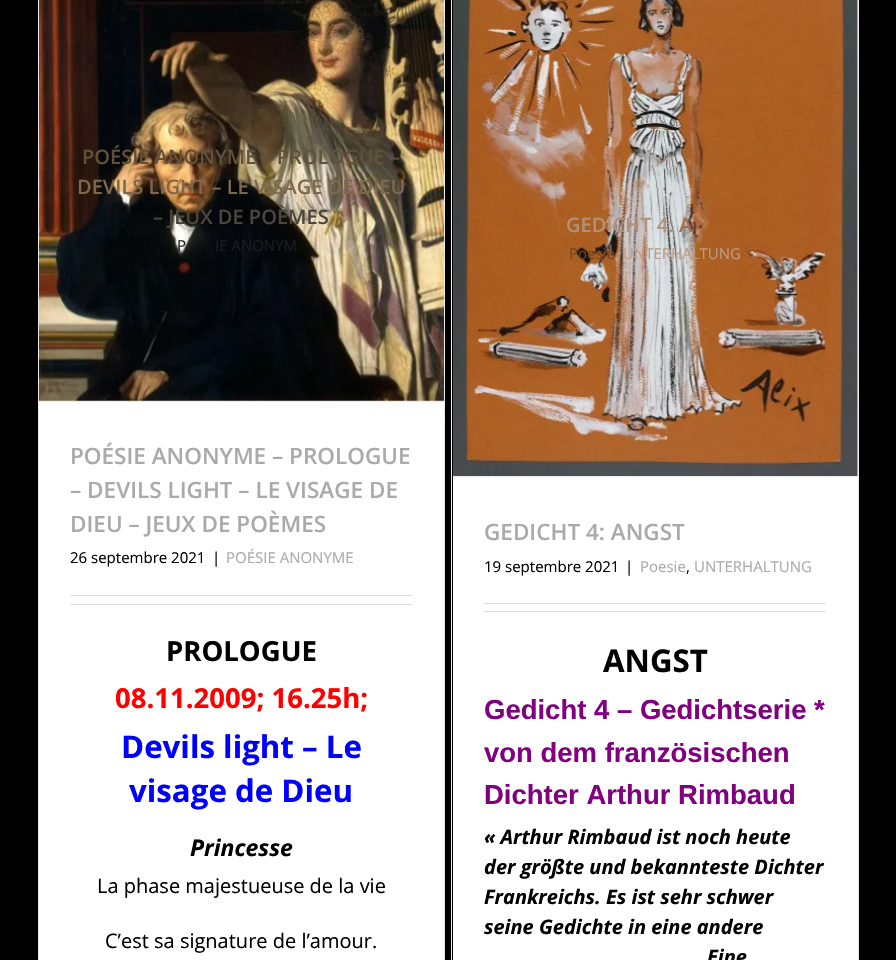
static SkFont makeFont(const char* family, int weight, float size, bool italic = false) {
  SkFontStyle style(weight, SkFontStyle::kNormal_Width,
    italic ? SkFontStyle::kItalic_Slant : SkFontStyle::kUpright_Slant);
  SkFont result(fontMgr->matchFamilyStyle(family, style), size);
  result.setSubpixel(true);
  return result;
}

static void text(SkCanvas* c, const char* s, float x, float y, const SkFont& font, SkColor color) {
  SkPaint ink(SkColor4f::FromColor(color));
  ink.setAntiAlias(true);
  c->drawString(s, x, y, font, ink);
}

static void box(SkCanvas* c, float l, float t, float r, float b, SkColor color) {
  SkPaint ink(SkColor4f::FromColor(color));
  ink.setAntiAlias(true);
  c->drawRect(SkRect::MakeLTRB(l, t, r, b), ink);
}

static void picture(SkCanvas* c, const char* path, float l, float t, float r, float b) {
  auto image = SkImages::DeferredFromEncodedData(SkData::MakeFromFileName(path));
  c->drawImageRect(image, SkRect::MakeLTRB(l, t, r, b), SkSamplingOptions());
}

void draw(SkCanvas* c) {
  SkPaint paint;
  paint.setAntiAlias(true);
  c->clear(0xff000000);
  box(c, 39, 400, 444, 960, 0xffffffff);
  box(c, 444, 0, 445, 960, 0xffebeaea);
  box(c, 38, 0, 39, 960, 0xffebeaea);
  box(c, 39, 401, 444, 402, 0xffebeaea);
  picture(c, "img_01.png", 39, 0, 444, 401);
  SkFont face1 = makeFont("Open Sans", 600, 20);
  text(c, "POÉSIE ANONYME – PROLOGUE –", 82, 164, face1, 0xff61503a);
  text(c, "DEVILS LIGHT – LE VISAGE DE DIEU", 77, 194, face1, 0xff7e684d);
  text(c, "– JEUX DE POÈMES", 153, 224, face1, 0xff4b463d);
  SkFont face2 = makeFont("Open Sans", 400, 15);
  text(c, "P", 177, 251, face2, 0xff1a1d1f);
  text(c, "IE ANONYM", 215, 251, face2, 0xff1a1d1f);
  SkFont face3 = makeFont("Open Sans", 600, 22.5f);
  text(c, "POÉSIE ANONYME – PROLOGUE", 70, 464, face3, 0xffaaaaaa);
  text(c, "– DEVILS LIGHT – LE VISAGE DE", 70, 498, face3, 0xffaaaaaa);
  text(c, "DIEU – JEUX DE POÈMES", 70, 532, face3, 0xffaaaaaa);
  text(c, "26 septembre 2021", 70, 563, face2, 0xff000000);
  text(c, "|", 212, 563, face2, 0xff000000);
  text(c, "POÉSIE ANONYME", 226, 563, face2, 0xffaaaaaa);
  box(c, 70, 595, 413, 596, 0xffe0dede);
  box(c, 70, 604, 413, 605, 0xffe0dede);
  SkFont face4 = makeFont("Open Sans", 700, 27.5f);
  text(c, "PROLOGUE", 166, 661, face4, 0xff000000);
  text(c, "08.11.2009; 16.25h;", 115, 708, face4, 0xffff0000);
  SkFont face5 = makeFont("Open Sans", 700, 31.25f);
  text(c, "Devils light – Le", 121, 758, face5, 0xff0000ff);
  text(c, "visage de Dieu", 129, 802, face5, 0xff0000ff);
  SkFont face6 = makeFont("Open Sans", 700, 23, true);
  text(c, "Princesse", 190, 856, face6, 0xff000000);
  SkFont face7 = makeFont("Open Sans", 400, 20);
  text(c, "La phase majestueuse de la vie", 97, 893, face7, 0xff000000);
  text(c, "C’est sa signature de l’amour.", 105, 948, face7, 0xff000000);
  box(c, 453, 0, 858, 960, 0xffffffff);
  box(c, 858, 0, 859, 960, 0xffebeaea);
  box(c, 451, 0, 452, 960, 0xffebeaea);
  box(c, 453, 476, 858, 477, 0xffebeaea);
  picture(c, "img_02.png", 453, 0, 858, 476);
  text(c, "GEDICHT 4:", 566, 232, face1, 0xffb39076);
  text(c, "A", 679, 232, face1, 0xffa86e44);
  text(c, "Poesie", 569, 259, face2, 0xff76431e);
  text(c, "UNTERHALTUNG", 623, 259, face2, 0xffbc9c83);
  text(c, "GEDICHT 4: ANGST", 484, 540, face3, 0xffaaaaaa);
  text(c, "19 septembre 2021", 484, 572, face2, 0xff000000);
  text(c, "|", 625, 572, face2, 0xff000000);
  text(c, "Poesie", 640, 572, face2, 0xffaaaaaa);
  text(c, ",", 686, 572, face2, 0xff000000);
  text(c, "UNTERHALTUNG", 694, 572, face2, 0xffaaaaaa);
  box(c, 484, 603, 826, 604, 0xffe0dede);
  box(c, 484, 611, 826, 612, 0xffe0dede);
  text(c, "ANGST", 603, 672, face5, 0xff000000);
  SkFont face8 = makeFont("Liberation Sans", 700, 27.5f);
  text(c, "Gedicht 4 – Gedichtserie *", 484, 719, face8, 0xff800080);
  text(c, "von dem französischen", 484, 762, face8, 0xff800080);
  text(c, "Dichter Arthur Rimbaud", 484, 804, face8, 0xff800080);
  SkFont face9 = makeFont("Open Sans", 700, 20, true);
  text(c, "« Arthur Rimbaud ist noch heute", 484, 844, face9, 0xff000000);
  text(c, "der größte und bekannteste Dichter", 484, 874, face9, 0xff000000);
  text(c, "Frankreichs. Es ist sehr schwer", 484, 904, face9, 0xff000000);
  text(c, "seine Gedichte in eine andere", 484, 934, face9, 0xff000000);
  text(c, "Eine", 707, 964, face9, 0xff000000);
}
